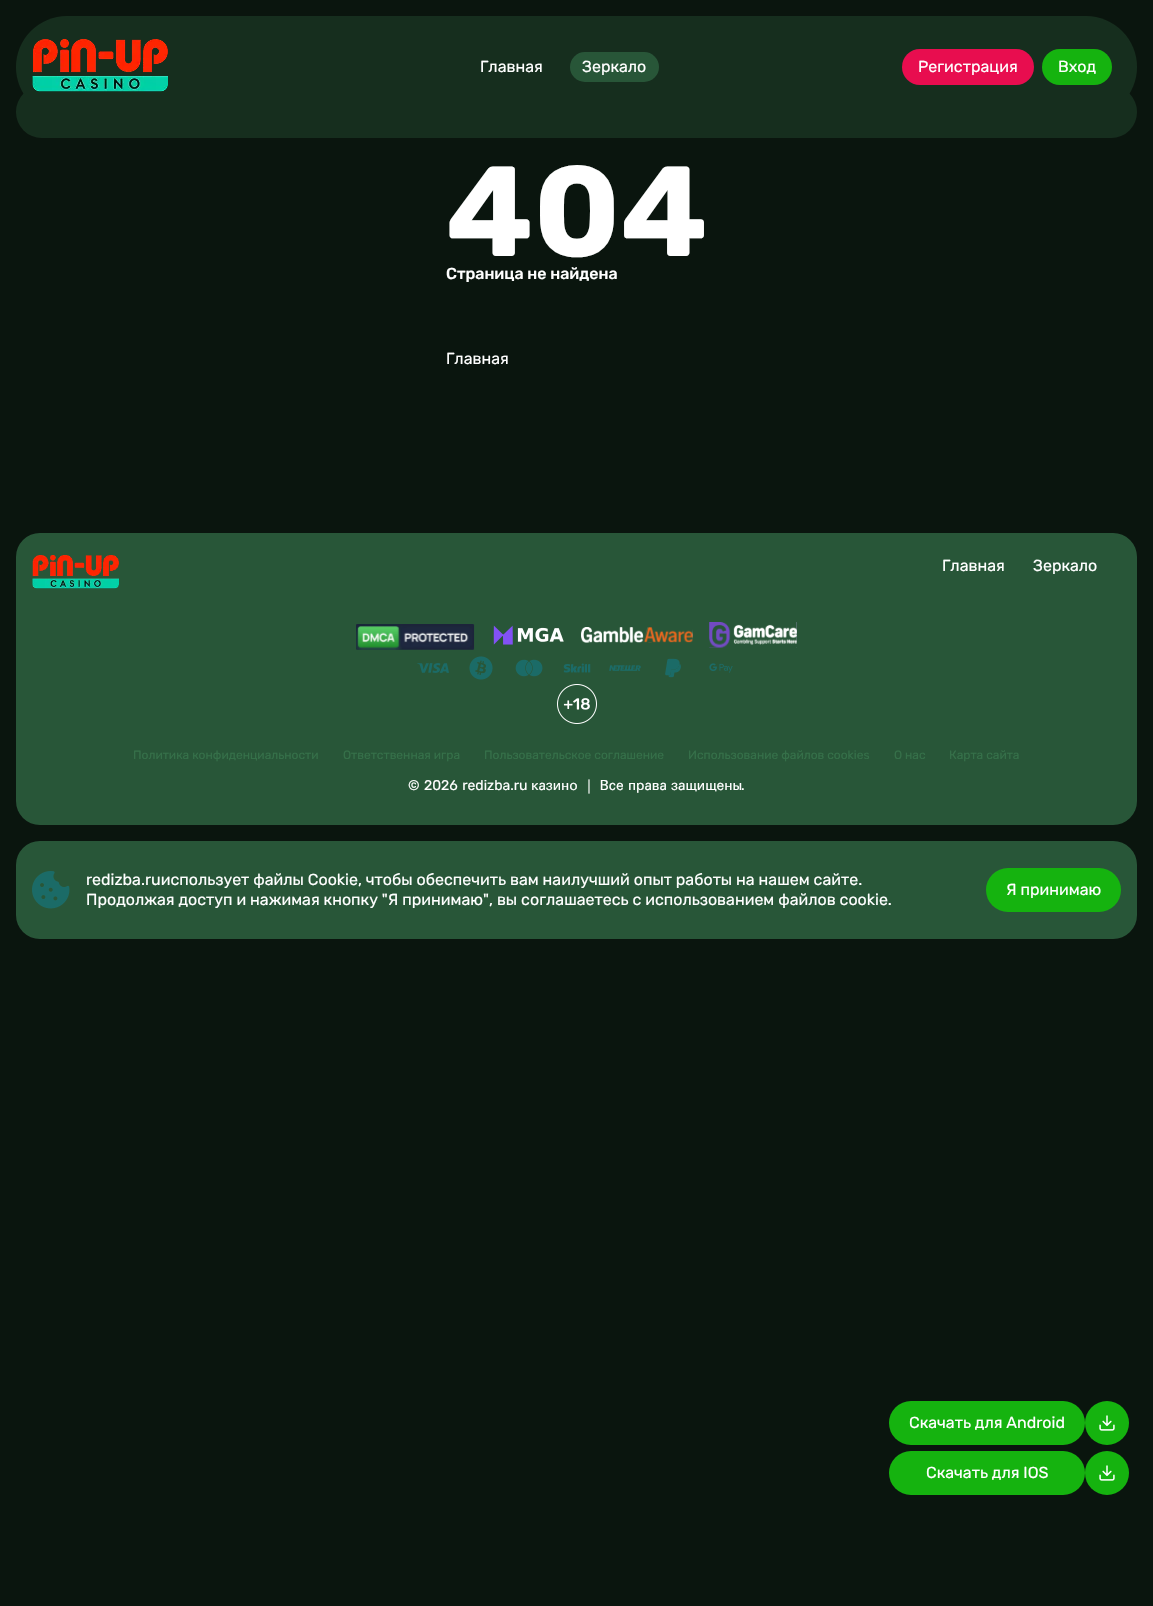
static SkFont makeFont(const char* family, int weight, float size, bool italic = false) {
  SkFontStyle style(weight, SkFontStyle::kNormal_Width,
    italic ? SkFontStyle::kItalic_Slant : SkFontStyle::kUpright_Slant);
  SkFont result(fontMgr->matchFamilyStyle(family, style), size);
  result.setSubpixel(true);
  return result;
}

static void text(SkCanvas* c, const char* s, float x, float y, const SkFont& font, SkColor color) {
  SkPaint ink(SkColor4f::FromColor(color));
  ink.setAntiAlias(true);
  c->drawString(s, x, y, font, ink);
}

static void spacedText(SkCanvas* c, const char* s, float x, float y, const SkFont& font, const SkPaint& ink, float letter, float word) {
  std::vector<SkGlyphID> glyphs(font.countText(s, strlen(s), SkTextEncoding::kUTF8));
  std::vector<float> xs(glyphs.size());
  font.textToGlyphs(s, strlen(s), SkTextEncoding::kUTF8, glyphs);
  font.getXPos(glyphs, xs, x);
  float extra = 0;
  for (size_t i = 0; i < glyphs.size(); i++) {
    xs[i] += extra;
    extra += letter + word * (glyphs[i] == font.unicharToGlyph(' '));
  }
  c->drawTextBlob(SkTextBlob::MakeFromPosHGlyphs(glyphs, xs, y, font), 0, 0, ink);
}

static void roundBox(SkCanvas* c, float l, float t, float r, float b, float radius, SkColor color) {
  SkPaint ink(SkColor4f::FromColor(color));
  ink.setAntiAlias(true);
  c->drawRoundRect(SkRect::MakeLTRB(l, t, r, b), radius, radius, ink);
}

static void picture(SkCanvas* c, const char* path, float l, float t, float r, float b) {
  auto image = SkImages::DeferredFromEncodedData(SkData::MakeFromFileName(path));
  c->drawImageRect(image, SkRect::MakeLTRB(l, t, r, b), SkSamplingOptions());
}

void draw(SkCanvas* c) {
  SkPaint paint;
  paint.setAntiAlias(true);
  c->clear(0xff0a150e);
  roundBox(c, 16, 86, 1137, 138, 26, 0xff162e1e);
  roundBox(c, 16, 16, 1137, 118, 51, 0xff162e1e);
  picture(c, "img_01.png", 32, 38, 168, 92);
  SkFont face1 = makeFont("Rubik", 400, 16);
  text(c, "Главная", 480, 72, face1, 0xffffffff);
  roundBox(c, 570, 52, 659, 82, 15, 0xff285638);
  text(c, "Зеркало", 582, 72, face1, 0xffffffff);
  roundBox(c, 902, 49, 1034, 85, 18, 0xffe80d4f);
  text(c, "Регистрация", 918, 72, face1, 0xffffffff);
  roundBox(c, 1042, 49, 1112, 85, 18, 0xff15b30f);
  text(c, "Вход", 1058, 72, face1, 0xffffffff);
  SkFont face2 = makeFont("Rubik", 700, 128);
  text(c, "404", 446, 256, face2, 0xffffffff);
  SkFont face3 = makeFont("Rubik", 500, 16);
  text(c, "Страница не найдена", 446, 279, face3, 0xffffffff);
  text(c, "Главная", 446, 364, face1, 0xffffffff);
  roundBox(c, 16, 533, 1137, 825, 24, 0xff285638);
  picture(c, "img_02.png", 32, 555, 119, 589);
  text(c, "Главная", 942, 571, face1, 0xffffffff);
  text(c, "Зеркало", 1033, 571, face1, 0xffffffff);
  picture(c, "img_03.png", 356, 624, 475, 650);
  picture(c, "img_04.png", 493, 625, 564, 645);
  picture(c, "img_05.png", 581, 627, 693, 643);
  picture(c, "img_06.png", 709, 622, 797, 648);
  picture(c, "img_07.png", 417, 663, 449, 673);
  picture(c, "img_08.png", 469, 656, 493, 680);
  picture(c, "img_09.png", 515, 659, 543, 677);
  picture(c, "img_10.png", 563, 663, 591, 673);
  picture(c, "img_11.png", 609, 665, 641, 671);
  picture(c, "img_12.png", 665, 658, 681, 678);
  picture(c, "img_13.png", 709, 663, 733, 673);
  picture(c, "img_14.png", 557, 684, 597, 724);
  SkFont face4 = makeFont("Rubik", 400, 12);
  text(c, "Политика конфиденциальности", 133, 759, face4, 0xff357049);
  text(c, "Ответственная игра", 343, 759, face4, 0xff357049);
  text(c, "Пользовательское соглашение", 484, 759, face4, 0xff357049);
  text(c, "Использование файлов cookies", 688, 759, face4, 0xff357049);
  text(c, "О нас", 894, 759, face4, 0xff357049);
  text(c, "Карта сайта", 949, 759, face4, 0xff357049);
  SkFont face5 = makeFont("Rubik", 400, 14);
  paint.setColor(0xffffffff);
  spacedText(c, "© 2026 redizba.ru", 408, 790, face5, paint, 0, 1);
  SkFont face6 = makeFont("WenQuanYi Zen Hei", 500, 14);
  text(c, "казино ｜ Все права защищены", 531, 790, face6, 0xffffffff);
  text(c, ".", 741, 790, face5, 0xffffffff);
  roundBox(c, 16, 841, 1137, 939, 24, 0xff285638);
  picture(c, "img_15.png", 32, 871, 70, 909);
  text(c, "redizba.ruиспользует файлы Cookie, чтобы обеспечить вам наилучший опыт работы на нашем сайте.", 86, 885, face1, 0xffffffff);
  text(c, "Продолжая доступ и нажимая кнопку \"Я принимаю\", вы соглашаетесь с использованием файлов cookie.", 86, 905, face1, 0xffffffff);
  roundBox(c, 986, 868, 1121, 912, 22, 0xff15b30f);
  text(c, "Я принимаю", 1006, 895, face1, 0xffffffff);
  roundBox(c, 889, 1401, 1085, 1445, 22, 0xff15b30f);
  text(c, "Скачать для Android", 909, 1428, face1, 0xffffffff);
  paint.setColor(0xff15b30f);
  c->drawCircle(1107, 1423, 22, paint);
  picture(c, "img_16.png", 1099, 1415, 1115, 1431);
  roundBox(c, 889, 1451, 1085, 1495, 22, 0xff15b30f);
  text(c, "Скачать для IOS", 926, 1478, face1, 0xffffffff);
  c->drawCircle(1107, 1473, 22, paint);
  picture(c, "img_16.png", 1099, 1465, 1115, 1481);
}
